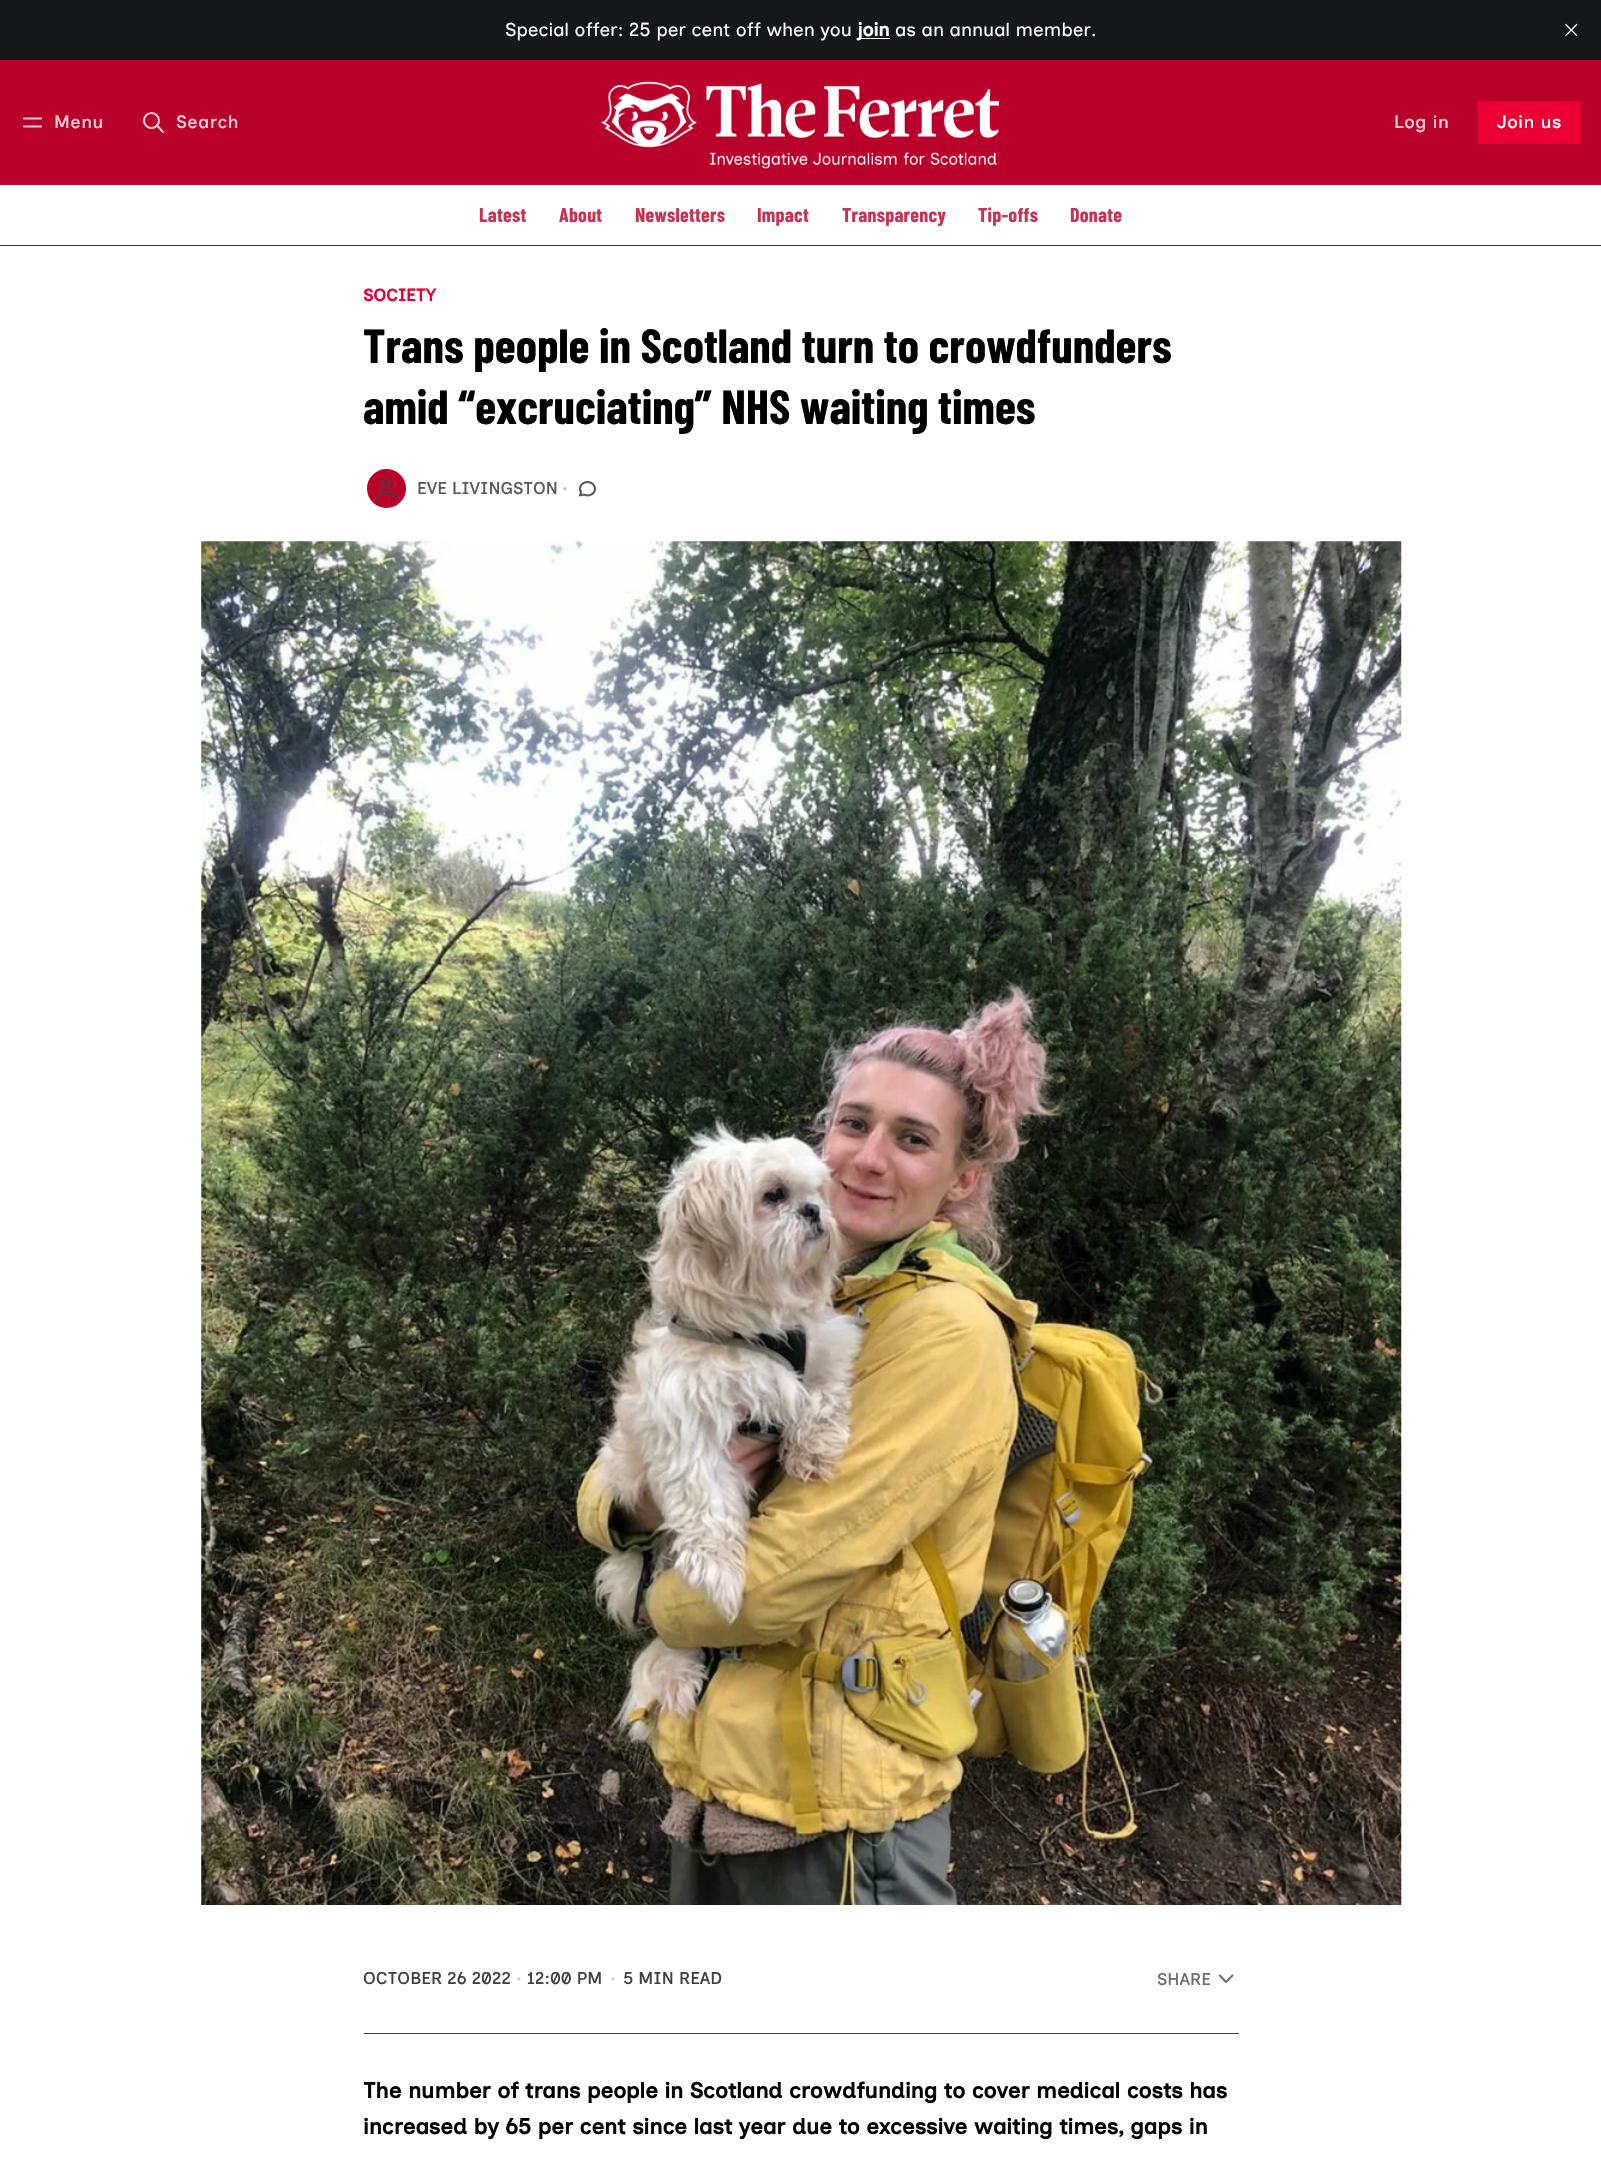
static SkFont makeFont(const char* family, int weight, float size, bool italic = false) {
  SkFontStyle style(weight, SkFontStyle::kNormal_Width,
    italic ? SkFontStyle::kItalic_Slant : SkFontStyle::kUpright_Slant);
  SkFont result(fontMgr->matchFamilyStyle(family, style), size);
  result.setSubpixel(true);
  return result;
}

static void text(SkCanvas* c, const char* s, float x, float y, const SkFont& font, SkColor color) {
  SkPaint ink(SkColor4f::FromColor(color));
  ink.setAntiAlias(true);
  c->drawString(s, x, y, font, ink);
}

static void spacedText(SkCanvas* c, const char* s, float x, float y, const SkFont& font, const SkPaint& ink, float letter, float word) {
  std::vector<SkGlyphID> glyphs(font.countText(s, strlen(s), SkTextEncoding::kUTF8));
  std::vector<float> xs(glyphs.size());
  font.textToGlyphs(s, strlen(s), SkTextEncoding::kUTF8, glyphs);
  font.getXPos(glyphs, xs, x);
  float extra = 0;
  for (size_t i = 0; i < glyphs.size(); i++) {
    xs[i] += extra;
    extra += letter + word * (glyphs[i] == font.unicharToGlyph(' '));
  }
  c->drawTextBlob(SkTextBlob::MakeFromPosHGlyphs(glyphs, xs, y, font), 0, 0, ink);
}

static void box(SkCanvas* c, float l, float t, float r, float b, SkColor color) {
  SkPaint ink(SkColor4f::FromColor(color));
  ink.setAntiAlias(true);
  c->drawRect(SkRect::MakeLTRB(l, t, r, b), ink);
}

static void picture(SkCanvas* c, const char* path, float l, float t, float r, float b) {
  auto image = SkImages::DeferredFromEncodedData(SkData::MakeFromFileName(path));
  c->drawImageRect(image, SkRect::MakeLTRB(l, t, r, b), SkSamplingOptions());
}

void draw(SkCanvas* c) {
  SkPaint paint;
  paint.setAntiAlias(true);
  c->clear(0xffffffff);
  box(c, 0, 0, 1601, 60, 0xff15171a);
  SkFont face1 = makeFont("Inclusive Sans", 400, 18.75f);
  text(c, "Special offer: 25 per cent off when you", 505, 36, face1, 0xffffffff);
  box(c, 858, 38, 890, 39, 0xffffffff);
  SkFont face2 = makeFont("Inclusive Sans", 700, 18.75f);
  text(c, "join", 857, 36, face2, 0xffffffff);
  text(c, "as an annual member.", 895, 36, face1, 0xffffffff);
  picture(c, "img_01.png", 1565, 23, 1578, 37);
  box(c, 0, 60, 1601, 185, 0xffb8002a);
  paint.setStyle(SkPaint::kStroke_Style);
  paint.setStrokeWidth(2.1f);
  paint.setStrokeCap(SkPaint::kRound_Cap);
  paint.setStrokeJoin(SkPaint::kRound_Join);
  paint.setColor(0xfff1ccd4);
  c->drawPath(SkPathBuilder().moveTo(24, 118.5f).lineTo(41, 118.5f).moveTo(24, 126.5f).lineTo(41, 126.5f).detach(), paint);
  SkFont face3 = makeFont("Inclusive Sans", 500, 18);
  paint.setStyle(SkPaint::kFill_Style);
  spacedText(c, "Menu", 54, 128, face3, paint, 0.5f, 0);
  paint.setStyle(SkPaint::kStroke_Style);
  paint.setStrokeCap(SkPaint::kButt_Cap);
  paint.setStrokeJoin(SkPaint::kMiter_Join);
  c->drawCircle(151.5f, 120.5f, 7.5f, paint);
  paint.setStrokeCap(SkPaint::kRound_Cap);
  paint.setStrokeJoin(SkPaint::kRound_Join);
  c->drawPath(SkPathBuilder().moveTo(163, 132).lineTo(157, 125.5f).detach(), paint);
  paint.setStyle(SkPaint::kFill_Style);
  spacedText(c, "Search", 176, 128, face3, paint, 0.5f, 0);
  picture(c, "img_02.png", 601, 81, 1000, 169);
  spacedText(c, "Log in", 1394, 128, face3, paint, 0.5f, 0);
  box(c, 1478, 101, 1581, 144, 0xffea0035);
  paint.setColor(0xffffffff);
  spacedText(c, "Join us", 1497, 128, face3, paint, 0.5f, 0);
  box(c, 0, 245, 1601, 246, 0xffb8002b);
  SkFont face4 = makeFont("Barlow Condensed", 700, 20);
  paint.setColor(0xffc63355);
  spacedText(c, "Latest", 479, 222, face4, paint, 0.25f, 0);
  spacedText(c, "About", 559, 222, face4, paint, 0.25f, 0);
  spacedText(c, "Newsletters", 635, 222, face4, paint, 0.25f, 0);
  spacedText(c, "Impact", 757, 222, face4, paint, 0.25f, 0);
  spacedText(c, "Transparency", 842, 222, face4, paint, 0.25f, 0);
  spacedText(c, "Tip-offs", 978, 222, face4, paint, 0.25f, 0);
  spacedText(c, "Donate", 1070, 222, face4, paint, 0.25f, 0);
  SkFont face5 = makeFont("Inclusive Sans", 700, 17);
  text(c, "SOCIETY", 363, 301, face5, 0xffea0035);
  SkFont face6 = makeFont("Barlow Condensed", 700, 48);
  text(c, "Trans people in Scotland turn to crowdfunders", 363, 363, face6, 0xff000000);
  text(c, "amid “excruciating” NHS waiting times", 363, 424, face6, 0xff000000);
  paint.setColor(0xffb8002b);
  c->drawCircle(386.5f, 488.5f, 21, paint);
  paint.setStyle(SkPaint::kStroke_Style);
  paint.setStrokeWidth(3);
  paint.setStrokeCap(SkPaint::kButt_Cap);
  paint.setStrokeJoin(SkPaint::kMiter_Join);
  paint.setColor(0xffffffff);
  c->drawCircle(386.5f, 488.5f, 21, paint);
  paint.setStrokeWidth(2.1f);
  paint.setColor(0xff404040);
  c->drawCircle(386, 483.5f, 4, paint);
  paint.setStrokeCap(SkPaint::kRound_Cap);
  paint.setStrokeJoin(SkPaint::kRound_Join);
  c->drawPath(SkPathBuilder().moveTo(394.5f, 498).cubicTo(394.5f, 491.5f, 392, 492, 386, 492).cubicTo(380.5f, 492, 378, 491.5f, 378, 498).detach(), paint);
  SkFont face7 = makeFont("Inclusive Sans", 500, 17);
  text(c, "EVE LIVINGSTON", 417, 494, face7, 0xff595959);
  text(c, "•", 562, 494, face7, 0xffbfbfbf);
  picture(c, "img_03.png", 579, 481, 596, 497);
  picture(c, "img_04.png", 201, 541, 1402, 1905);
  box(c, 364, 2033, 1239, 2034, 0xffb8002b);
  text(c, "OCTOBER 26 2022", 363, 1984, face7, 0xff404040);
  text(c, "•", 516, 1984, face7, 0xffcfcfcf);
  text(c, "12:00 PM", 527, 1984, face7, 0xff404040);
  text(c, "•", 610, 1984, face7, 0xffcfcfcf);
  text(c, "5 MIN READ", 623, 1984, face7, 0xff404040);
  text(c, "SHARE", 1157, 1985, face7, 0xff707070);
  paint.setColor(0xff707070);
  c->drawPath(SkPathBuilder().moveTo(1220, 1975.5f).lineTo(1226, 1982).lineTo(1232.5f, 1975.5f).detach(), paint);
  SkFont face8 = makeFont("Inclusive Sans", 700, 22);
  text(c, "The number of trans people in Scotland crowdfunding to cover medical costs has", 363, 2098, face8, 0xff000000);
  text(c, "increased by 65 per cent since last year due to excessive waiting times, gaps in", 363, 2134, face8, 0xff000000);
}
